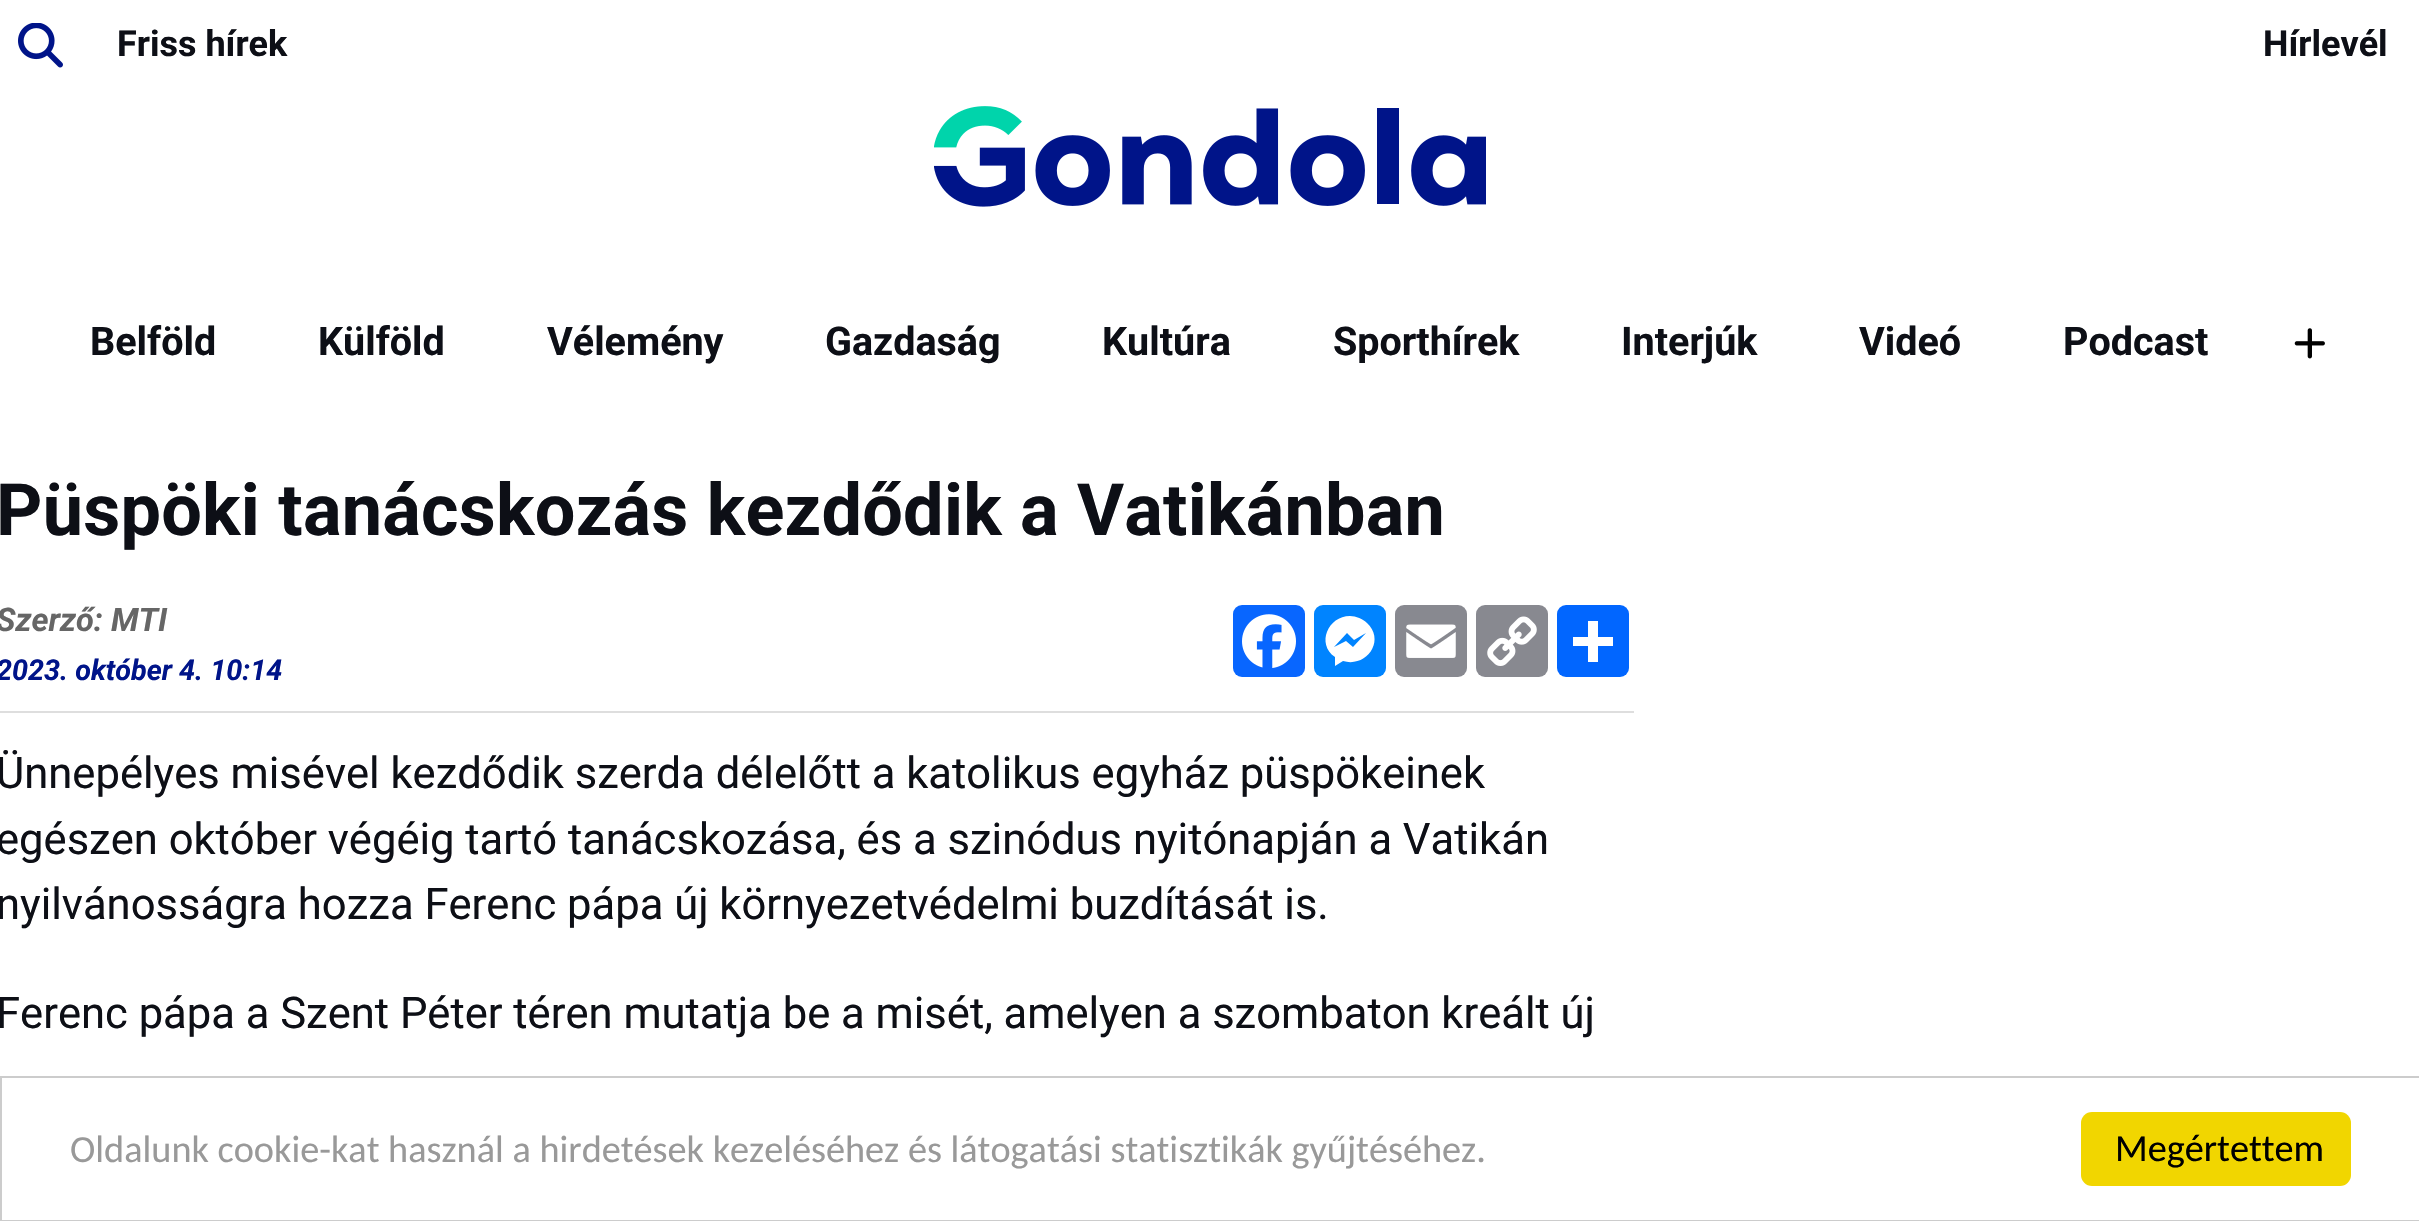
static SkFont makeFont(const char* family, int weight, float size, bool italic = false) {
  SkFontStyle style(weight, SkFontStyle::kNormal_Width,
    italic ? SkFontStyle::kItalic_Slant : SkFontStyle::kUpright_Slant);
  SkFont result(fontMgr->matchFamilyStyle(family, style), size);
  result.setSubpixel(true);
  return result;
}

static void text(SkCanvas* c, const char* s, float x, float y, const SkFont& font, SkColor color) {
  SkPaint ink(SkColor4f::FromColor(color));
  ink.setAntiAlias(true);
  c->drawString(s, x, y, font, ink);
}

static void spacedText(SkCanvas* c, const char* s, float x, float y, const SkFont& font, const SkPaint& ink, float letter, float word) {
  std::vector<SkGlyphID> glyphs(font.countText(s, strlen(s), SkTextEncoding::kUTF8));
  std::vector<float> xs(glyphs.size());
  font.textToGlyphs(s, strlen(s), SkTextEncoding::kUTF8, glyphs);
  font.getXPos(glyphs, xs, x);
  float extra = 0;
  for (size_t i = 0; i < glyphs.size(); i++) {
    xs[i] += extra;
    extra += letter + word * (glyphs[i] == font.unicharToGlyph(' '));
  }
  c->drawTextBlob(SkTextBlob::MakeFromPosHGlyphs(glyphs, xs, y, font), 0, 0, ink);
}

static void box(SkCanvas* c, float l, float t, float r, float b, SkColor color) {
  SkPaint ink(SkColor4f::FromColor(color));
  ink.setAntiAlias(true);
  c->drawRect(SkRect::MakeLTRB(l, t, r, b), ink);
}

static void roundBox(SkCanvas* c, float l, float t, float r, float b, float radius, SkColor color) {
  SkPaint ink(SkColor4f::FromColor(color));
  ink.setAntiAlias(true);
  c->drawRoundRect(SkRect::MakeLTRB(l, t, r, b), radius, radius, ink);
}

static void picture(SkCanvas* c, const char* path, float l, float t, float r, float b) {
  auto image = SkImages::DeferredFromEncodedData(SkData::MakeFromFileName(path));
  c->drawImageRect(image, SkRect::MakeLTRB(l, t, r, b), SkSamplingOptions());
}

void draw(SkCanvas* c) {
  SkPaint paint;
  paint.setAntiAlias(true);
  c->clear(0xffffffff);
  picture(c, "img_01.png", 18, 23, 63, 68);
  SkFont face1 = makeFont("Roboto", 700, 36);
  text(c, "Friss hírek", 117, 56, face1, 0xff0d0f16);
  text(c, "Hírlevél", 2263, 56, face1, 0xff0d0f16);
  picture(c, "img_02.png", 934, 106, 1486, 207);
  SkFont face2 = makeFont("Roboto", 700, 39.5f);
  text(c, "Belföld", 90, 355, face2, 0xff0d0f16);
  text(c, "Külföld", 318, 355, face2, 0xff0d0f16);
  text(c, "Vélemény", 547, 355, face2, 0xff0d0f16);
  text(c, "Gazdaság", 825, 355, face2, 0xff0d0f16);
  text(c, "Kultúra", 1102, 355, face2, 0xff0d0f16);
  text(c, "Sporthírek", 1333, 355, face2, 0xff0d0f16);
  text(c, "Interjúk", 1621, 355, face2, 0xff0d0f16);
  text(c, "Videó", 1859, 355, face2, 0xff0d0f16);
  text(c, "Podcast", 2063, 355, face2, 0xff0d0f16);
  picture(c, "img_03.png", 2294, 328, 2325, 359);
  SkFont face3 = makeFont("Roboto", 700, 72);
  paint.setColor(0xff0d0f16);
  spacedText(c, "Püspöki tanácskozás kezdődik a Vatikánban", -4, 535, face3, paint, 0.25f, 0);
  SkFont face4 = makeFont("Roboto", 700, 32.5f, true);
  text(c, "Szerző: MTI", -4, 631, face4, 0xff666666);
  roundBox(c, 1233, 605, 1305, 677, 9, 0xff0866ff);
  picture(c, "img_04.png", 1242, 614, 1296, 668);
  roundBox(c, 1314, 605, 1386, 677, 9, 0xff0084ff);
  paint.setColor(0xffffffff);
  c->drawPath(SkPathBuilder().moveTo(1350, 616).cubicTo(1328, 616, 1316, 644, 1335, 657).lineTo(1335, 666).lineTo(1343, 661).cubicTo(1366, 668, 1386, 641, 1367, 623).cubicTo(1363, 619, 1356, 616, 1350, 616).moveTo(1353, 647).lineTo(1346, 641).lineTo(1334, 647).lineTo(1347, 633).lineTo(1354, 640).lineTo(1366, 633).close().detach(), paint);
  roundBox(c, 1395, 605, 1467, 677, 9, 0xff888990);
  picture(c, "img_05.png", 1406, 624, 1456, 658);
  roundBox(c, 1476, 605, 1548, 677, 9, 0xff888990);
  picture(c, "img_06.png", 1487, 616, 1537, 666);
  roundBox(c, 1557, 605, 1629, 677, 9, 0xff0166ff);
  box(c, 1588, 621, 1598, 662, 0xffffffff);
  box(c, 1573, 637, 1613, 646, 0xffffffff);
  box(c, 0, 711, 1634, 713, 0xffdedede);
  SkFont face5 = makeFont("Roboto", 700, 28.75f, true);
  text(c, "2023. október 4. 10:14", -4, 680, face5, 0xff001489);
  SkFont face6 = makeFont("Roboto", 400, 43.55f);
  text(c, "Ünnepélyes misével kezdődik szerda délelőtt a katolikus egyház püspökeinek", -4, 788, face6, 0xff0d0f16);
  text(c, "egészen október végéig tartó tanácskozása, és a szinódus nyitónapján a Vatikán", -4, 854, face6, 0xff0d0f16);
  text(c, "nyilvánosságra hozza Ferenc pápa új környezetvédelmi buzdítását is.", -4, 919, face6, 0xff0d0f16);
  text(c, "Ferenc pápa a Szent Péter téren mutatja be a misét, amelyen a szombaton kreált új", -4, 1028, face6, 0xff0d0f16);
  paint.setStyle(SkPaint::kStroke_Style);
  paint.setStrokeWidth(2);
  paint.setColor(0xffcccccc);
  c->drawRect(SkRect::MakeLTRB(1, 1077, 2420, 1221), paint);
  SkFont face7 = makeFont("Carlito", 400, 38.25f);
  text(c, "Oldalunk cookie-kat használ a hirdetések kezeléséhez és látogatási statisztikák gyűjtéséhez.", 70, 1162, face7, 0xff999999);
  roundBox(c, 2081, 1112, 2351, 1186, 11, 0xfff1d600);
  text(c, "Megértettem", 2115, 1161, face7, 0xff000000);
}
